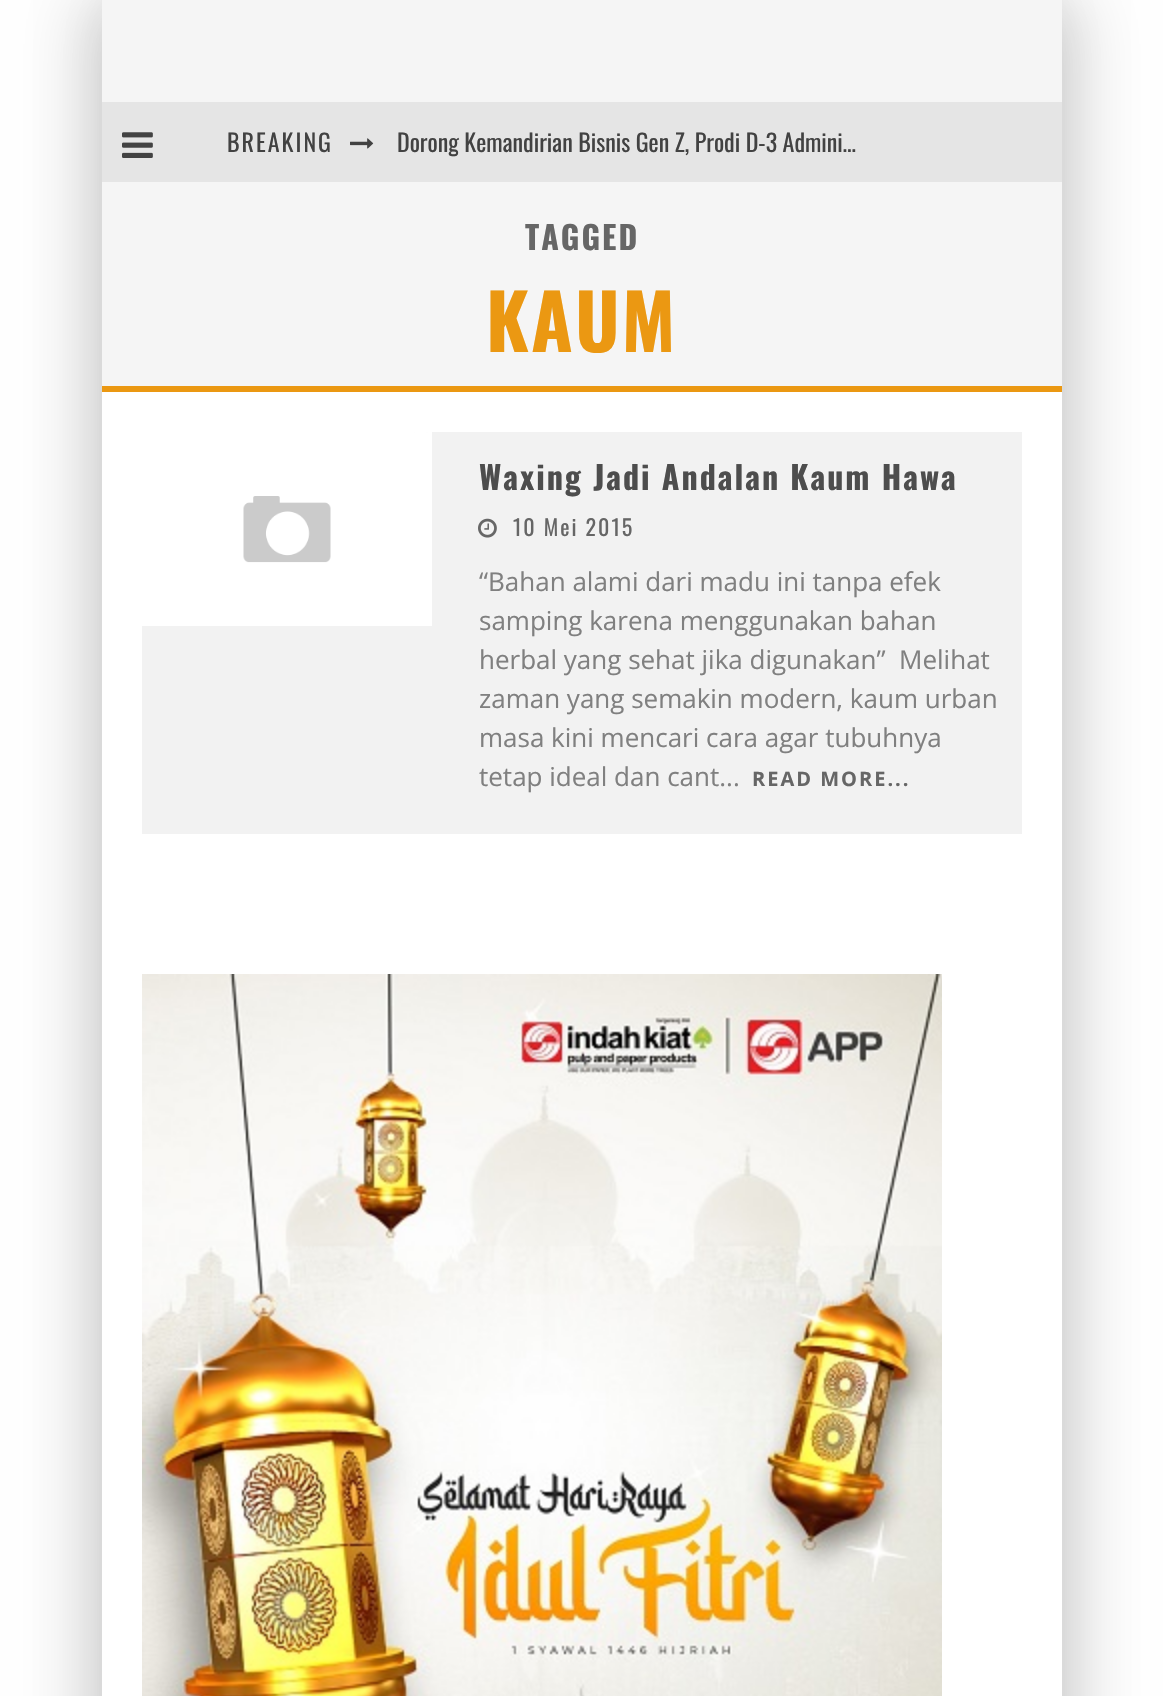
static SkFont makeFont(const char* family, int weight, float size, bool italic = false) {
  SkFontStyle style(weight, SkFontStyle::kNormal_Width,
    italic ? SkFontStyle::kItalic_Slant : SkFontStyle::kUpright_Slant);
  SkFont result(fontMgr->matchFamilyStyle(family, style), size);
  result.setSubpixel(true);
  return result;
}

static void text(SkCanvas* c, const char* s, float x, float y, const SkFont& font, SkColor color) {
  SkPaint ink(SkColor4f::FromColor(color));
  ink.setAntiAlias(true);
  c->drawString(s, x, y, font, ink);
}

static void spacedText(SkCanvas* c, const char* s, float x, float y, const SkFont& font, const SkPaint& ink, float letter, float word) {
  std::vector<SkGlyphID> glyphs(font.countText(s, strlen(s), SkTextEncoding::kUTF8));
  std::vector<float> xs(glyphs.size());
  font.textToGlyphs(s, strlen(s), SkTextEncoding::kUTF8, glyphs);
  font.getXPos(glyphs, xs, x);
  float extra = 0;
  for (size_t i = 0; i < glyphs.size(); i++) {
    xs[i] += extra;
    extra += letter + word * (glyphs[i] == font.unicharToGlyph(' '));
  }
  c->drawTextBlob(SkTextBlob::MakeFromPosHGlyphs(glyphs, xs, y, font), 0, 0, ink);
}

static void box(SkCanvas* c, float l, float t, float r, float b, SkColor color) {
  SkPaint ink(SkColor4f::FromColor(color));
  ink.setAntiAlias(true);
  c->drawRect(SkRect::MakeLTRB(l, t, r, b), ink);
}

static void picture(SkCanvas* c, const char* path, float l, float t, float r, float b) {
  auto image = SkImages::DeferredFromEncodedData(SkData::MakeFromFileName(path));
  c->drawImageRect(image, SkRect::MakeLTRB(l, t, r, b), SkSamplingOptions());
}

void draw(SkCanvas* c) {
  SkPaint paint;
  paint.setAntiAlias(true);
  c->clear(0xffffffff);
  c->save();
  c->clipPath(SkPathBuilder(SkPathFillType::kEvenOdd).moveTo(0, 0).lineTo(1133, 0).lineTo(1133, 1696).lineTo(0, 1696).close().moveTo(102, 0).lineTo(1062, 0).lineTo(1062, 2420).lineTo(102, 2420).close().detach(), true);
  paint.setColor(0x26000000);
  paint.setMaskFilter(SkMaskFilter::MakeBlur(kNormal_SkBlurStyle, 30));
  c->drawRect(SkRect::MakeLTRB(82, 0, 1042, 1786), paint);
  paint.setMaskFilter(nullptr);
  c->restore();
  c->save();
  c->clipPath(SkPathBuilder(SkPathFillType::kEvenOdd).moveTo(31, 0).lineTo(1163, 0).lineTo(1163, 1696).lineTo(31, 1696).close().moveTo(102, 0).lineTo(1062, 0).lineTo(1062, 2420).lineTo(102, 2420).close().detach(), true);
  paint.setMaskFilter(SkMaskFilter::MakeBlur(kNormal_SkBlurStyle, 30));
  c->drawRect(SkRect::MakeLTRB(122, 0, 1082, 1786), paint);
  paint.setMaskFilter(nullptr);
  c->restore();
  box(c, 102, 0, 1062, 102, 0xfff5f5f5);
  box(c, 102, 102, 1062, 182, 0xffe5e5e5);
  picture(c, "img_01.png", 122, 132, 153, 158);
  SkFont face1 = makeFont("Oswald", 400, 24);
  paint.setColor(0xff424242);
  spacedText(c, "BREAKING", 227, 152, face1, paint, 2, 0);
  picture(c, "img_02.png", 350, 138, 374, 149);
  text(c, "Dorong Kemandirian Bisnis Gen Z, Prodi D-3 Admini…", 397, 152, face1, 0xff424242);
  box(c, 102, 182, 1062, 386, 0xfff5f5f5);
  box(c, 102, 386, 1062, 392, 0xffeb9812);
  SkFont face2 = makeFont("Oswald", 700, 32);
  paint.setColor(0xff666666);
  spacedText(c, "TAGGED", 525, 250, face2, paint, 2, 0);
  SkFont face3 = makeFont("Oswald", 700, 76);
  paint.setColor(0xffeb9812);
  spacedText(c, "KAUM", 486, 352, face3, paint, 2, 0);
  box(c, 142, 432, 1022, 834, 0xfff2f2f2);
  picture(c, "img_03.png", 142, 432, 432, 626);
  paint.setColor(0xff4d4d4d);
  spacedText(c, "Waxing Jadi Andalan Kaum Hawa", 479, 490, face2, paint, 2, 0);
  picture(c, "img_04.png", 478, 518, 497, 538);
  SkFont face4 = makeFont("Oswald", 400, 22);
  paint.setColor(0xff666666);
  spacedText(c, "10 Mei 2015", 513, 536, face4, paint, 2, 0);
  SkFont face5 = makeFont("Open Sans", 400, 26);
  text(c, "“Bahan alami dari madu ini tanpa efek", 479, 591, face5, 0xff808080);
  text(c, "samping karena menggunakan bahan", 479, 630, face5, 0xff808080);
  text(c, "herbal yang sehat jika digunakan”  Melihat", 479, 669, face5, 0xff808080);
  text(c, "zaman yang semakin modern, kaum urban", 479, 708, face5, 0xff808080);
  text(c, "masa kini mencari cara agar tubuhnya", 479, 747, face5, 0xff808080);
  text(c, "tetap ideal dan cant...", 479, 786, face5, 0xff808080);
  SkFont face6 = makeFont("Open Sans", 700, 20);
  spacedText(c, "READ MORE...", 752, 786, face6, paint, 2, 0);
  picture(c, "img_05.png", 142, 974, 942, 1696);
}
